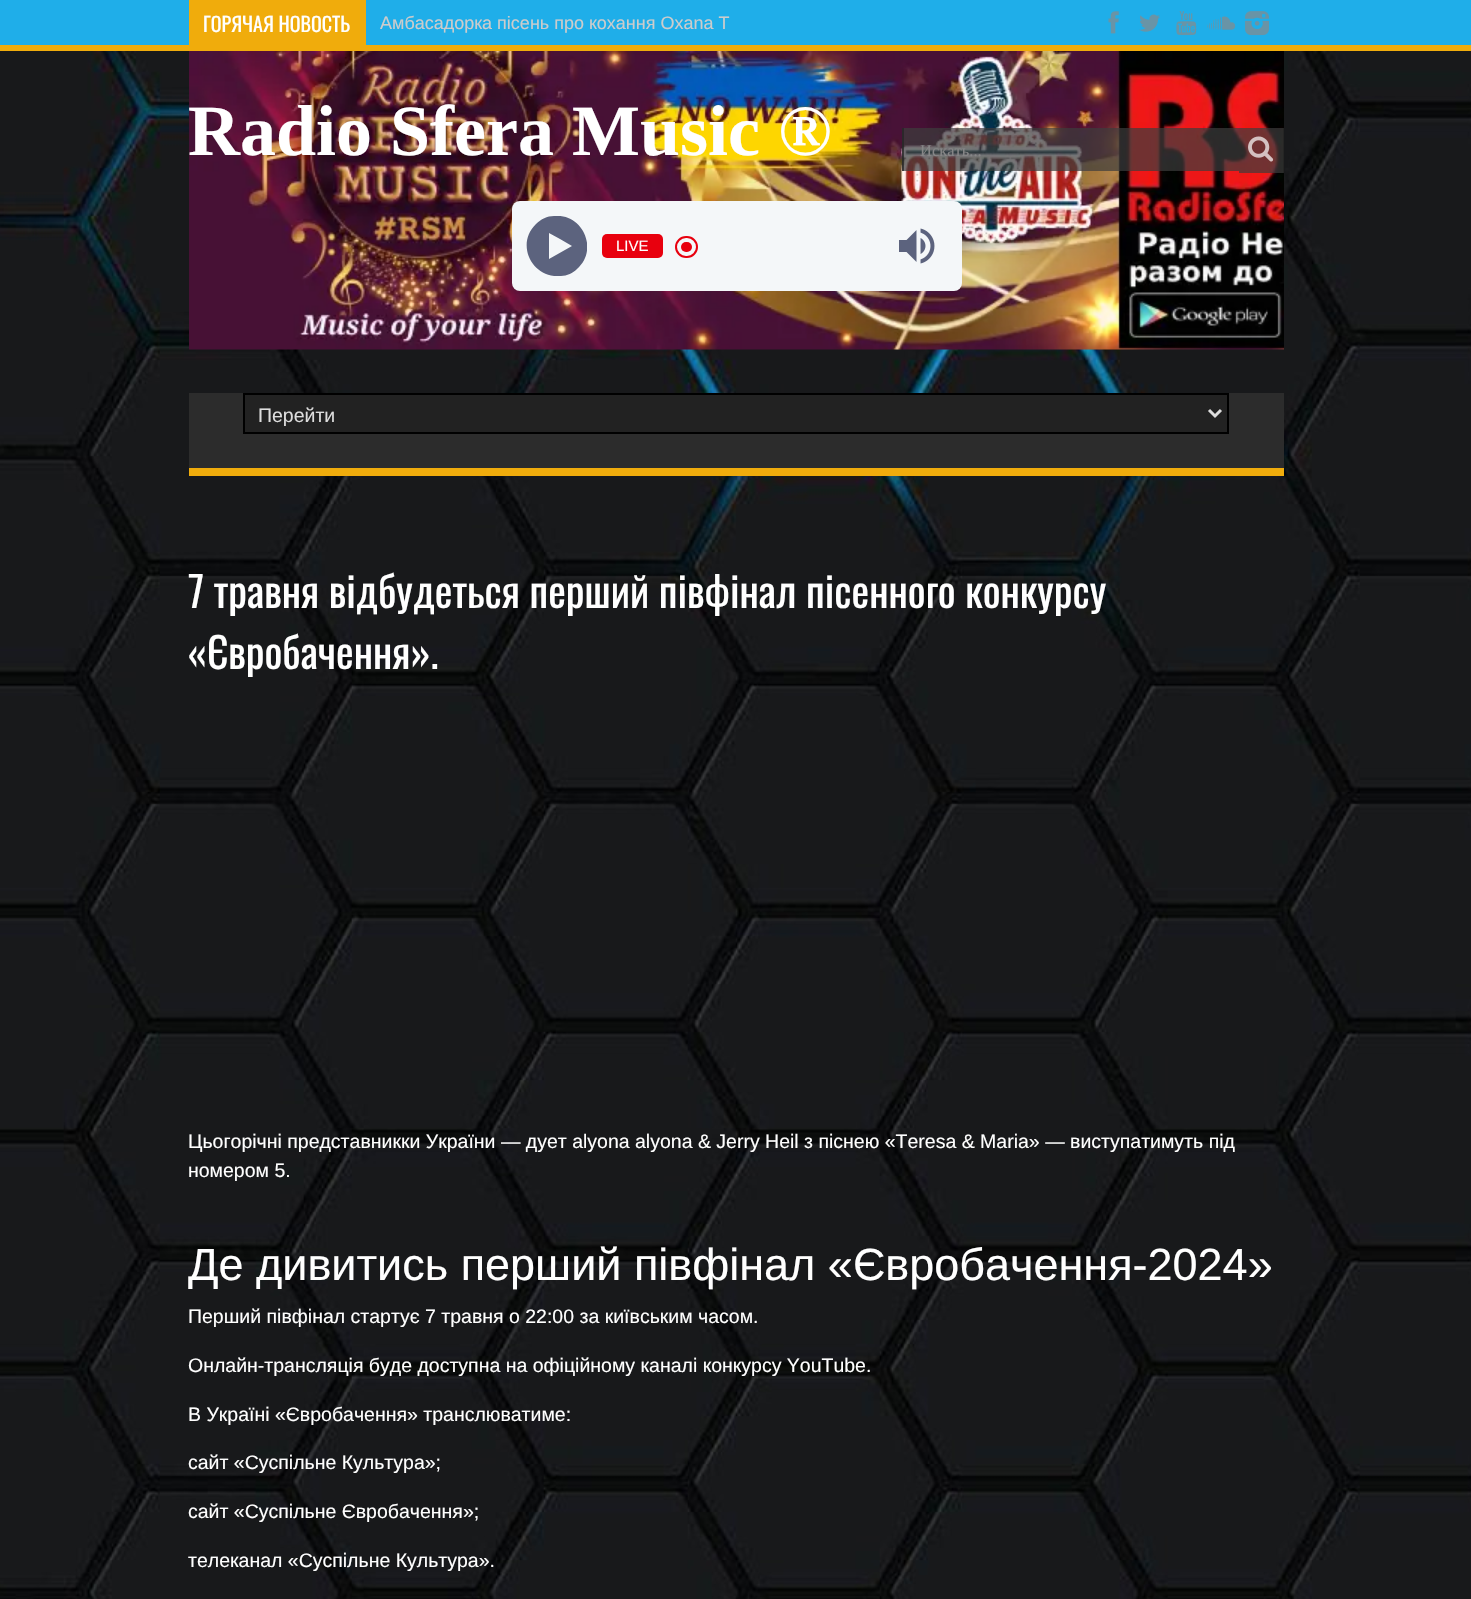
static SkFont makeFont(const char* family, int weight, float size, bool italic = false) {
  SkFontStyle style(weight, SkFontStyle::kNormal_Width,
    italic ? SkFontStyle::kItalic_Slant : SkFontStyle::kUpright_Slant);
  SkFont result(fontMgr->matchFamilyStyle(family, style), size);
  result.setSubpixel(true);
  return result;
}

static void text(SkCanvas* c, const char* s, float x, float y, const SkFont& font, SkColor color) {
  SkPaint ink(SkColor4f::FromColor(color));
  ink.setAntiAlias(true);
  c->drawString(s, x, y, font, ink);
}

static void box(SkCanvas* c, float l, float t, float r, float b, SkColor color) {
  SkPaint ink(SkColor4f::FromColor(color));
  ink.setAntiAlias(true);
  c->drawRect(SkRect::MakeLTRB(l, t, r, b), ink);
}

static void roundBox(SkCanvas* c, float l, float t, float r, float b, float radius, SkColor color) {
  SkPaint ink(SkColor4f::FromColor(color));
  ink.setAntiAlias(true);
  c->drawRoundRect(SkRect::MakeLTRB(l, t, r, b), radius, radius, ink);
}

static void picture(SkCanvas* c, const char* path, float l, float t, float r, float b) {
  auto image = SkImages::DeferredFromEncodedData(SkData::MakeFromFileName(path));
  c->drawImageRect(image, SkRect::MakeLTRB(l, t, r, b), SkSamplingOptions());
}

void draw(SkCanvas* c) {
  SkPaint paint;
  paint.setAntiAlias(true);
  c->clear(0xffffffff);
  picture(c, "img_01.png", 0, 51, 1471, 1599);
  box(c, 0, 0, 1471, 45, 0xff1faee9);
  box(c, 0, 45, 1471, 51, 0xfff0ac0c);
  box(c, 189, 0, 366, 45, 0xfff0ac0c);
  SkFont face1 = makeFont("Oswald", 400, 20);
  text(c, "ГОРЯЧАЯ НОВОСТЬ", 203, 32, face1, 0xffffffff);
  SkFont face2 = makeFont("Liberation Sans", 400, 18);
  text(c, "Амбасадорка пісень про кохання Oxana T", 380, 29, face2, 0xffcccccc);
  picture(c, "img_02.png", 1108, 11, 1119, 34);
  picture(c, "img_03.png", 1139, 14, 1160, 32);
  picture(c, "img_04.png", 1176, 11, 1197, 36);
  picture(c, "img_05.png", 1207, 16, 1236, 30);
  picture(c, "img_06.png", 1245, 11, 1269, 36);
  picture(c, "img_08.png", 189, 51, 1284, 350);
  box(c, 902, 128, 1239, 171, 0xb33c3c3c);
  box(c, 902, 128, 904, 171, 0xb3222222);
  SkFont face3 = makeFont("Liberation Serif", 400, 16.5f);
  text(c, "Искать...", 920, 156, face3, 0xff878788);
  box(c, 1239, 128, 1283, 173, 0xb33c3c3c);
  box(c, 1283, 128, 1284, 173, 0xff252524);
  picture(c, "img_07.png", 1248, 136, 1274, 162);
  SkFont face4 = makeFont("Liberation Serif", 700, 72);
  text(c, "Radio Sfera Music ®", 188, 155, face4, 0xffffffff);
  roundBox(c, 512, 201, 962, 291, 8, 0xfff4f7f9);
  c->save();
  c->clipRect(SkRect::MakeLTRB(525, 216, 587, 276));
  paint.setColor(0xff5c637e);
  c->drawPath(SkPathBuilder().moveTo(554, 216).cubicTo(547, 216, 541, 219, 536, 224).cubicTo(515, 244, 532, 279, 561, 276).cubicTo(567, 276, 573, 273, 577, 269).cubicTo(599, 250, 583, 213, 554, 216).close().moveTo(560, 239).lineTo(572, 246).lineTo(549, 259).lineTo(549, 233).close().detach(), paint);
  c->restore();
  roundBox(c, 602, 234, 663, 258, 5, 0xffe8000e);
  SkFont face5 = makeFont("Liberation Sans", 400, 15);
  text(c, "LIVE", 616, 251, face5, 0xffffffff);
  roundBox(c, 681, 242, 692, 252, 5, 0xffe8000e);
  paint.setStyle(SkPaint::kStroke_Style);
  paint.setStrokeWidth(2);
  paint.setColor(0xffe8000e);
  c->drawRoundRect(SkRect::MakeLTRB(676, 237, 697, 257), 10, 10, paint);
  picture(c, "img_09.png", 899, 228, 935, 264);
  box(c, 189, 393, 1284, 468, 0xff2c2c2c);
  box(c, 189, 468, 1284, 476, 0xfff0ac0c);
  paint.setStyle(SkPaint::kFill_Style);
  paint.setColor(0xff222222);
  c->drawRect(SkRect::MakeLTRB(244, 394, 1228, 433), paint);
  paint.setStyle(SkPaint::kStroke_Style);
  paint.setColor(0xff000000);
  c->drawRect(SkRect::MakeLTRB(244, 394, 1228, 433), paint);
  paint.setStrokeWidth(3);
  paint.setColor(0xffdddddd);
  c->drawPath(SkPathBuilder().moveTo(1209, 410).lineTo(1215, 416).lineTo(1221, 410).detach(), paint);
  SkFont face6 = makeFont("Liberation Sans", 400, 19.5f);
  text(c, "Перейти", 258, 422, face6, 0xffdddddd);
  SkFont face7 = makeFont("Oswald", 400, 42);
  text(c, "7 травня відбудеться перший півфінал пісенного конкурсу", 188, 608, face7, 0xffffffff);
  text(c, "«Євробачення».", 188, 669, face7, 0xffffffff);
  text(c, "Цьогорічні представникки України — дует alyona alyona & Jerry Heil з піснею «Teresa & Maria» — виступатимуть під", 188, 1148, face6, 0xffffffff);
  text(c, "номером 5.", 188, 1177, face6, 0xffffffff);
  SkFont face8 = makeFont("Liberation Sans", 400, 45);
  text(c, "Де дивитись перший півфінал «Євробачення-2024»", 188, 1280, face8, 0xffffffff);
  text(c, "Перший півфінал стартує 7 травня о 22:00 за київським часом.", 188, 1323, face6, 0xffffffff);
  text(c, "Онлайн-трансляція буде доступна на офіційному каналі конкурсу YouTube.", 188, 1372, face6, 0xffffffff);
  text(c, "В Україні «Євробачення» транслюватиме:", 188, 1421, face6, 0xffffffff);
  text(c, "сайт «Суспільне Культура»;", 188, 1469, face6, 0xffffffff);
  text(c, "сайт «Суспільне Євробачення»;", 188, 1518, face6, 0xffffffff);
  text(c, "телеканал «Суспільне Культура».", 188, 1567, face6, 0xffffffff);
}
